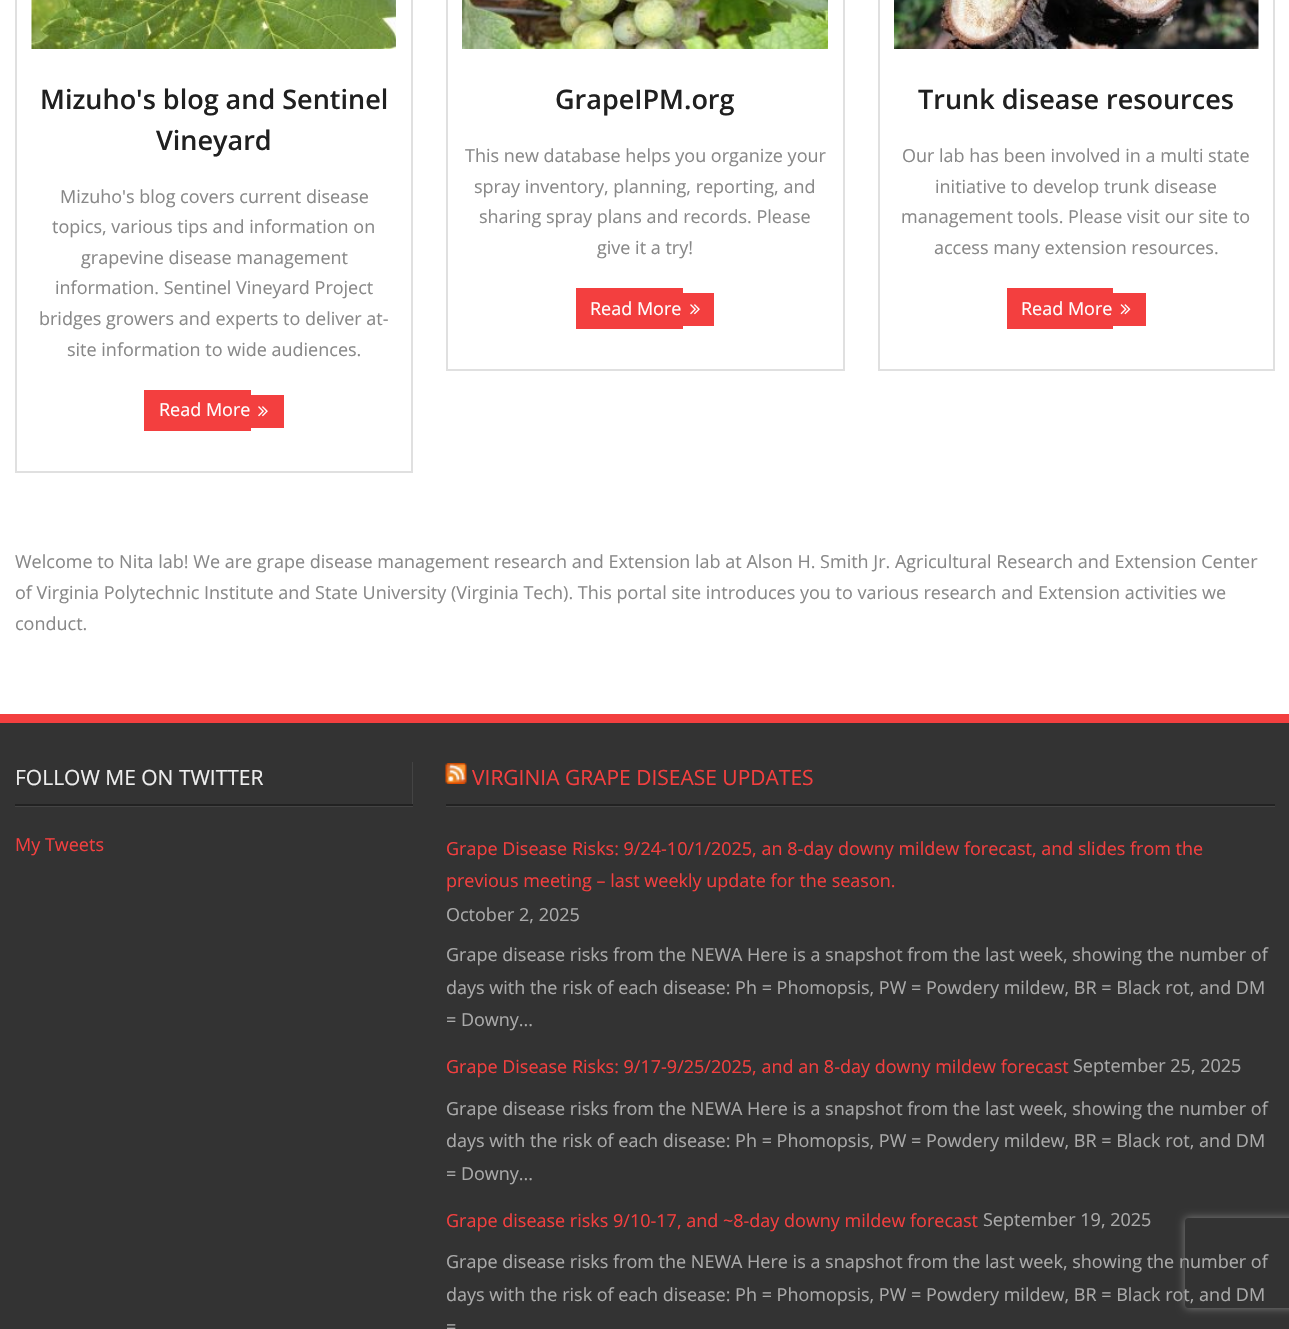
static SkFont makeFont(const char* family, int weight, float size, bool italic = false) {
  SkFontStyle style(weight, SkFontStyle::kNormal_Width,
    italic ? SkFontStyle::kItalic_Slant : SkFontStyle::kUpright_Slant);
  SkFont result(fontMgr->matchFamilyStyle(family, style), size);
  result.setSubpixel(true);
  return result;
}

static void text(SkCanvas* c, const char* s, float x, float y, const SkFont& font, SkColor color) {
  SkPaint ink(SkColor4f::FromColor(color));
  ink.setAntiAlias(true);
  c->drawString(s, x, y, font, ink);
}

static void box(SkCanvas* c, float l, float t, float r, float b, SkColor color) {
  SkPaint ink(SkColor4f::FromColor(color));
  ink.setAntiAlias(true);
  c->drawRect(SkRect::MakeLTRB(l, t, r, b), ink);
}

static void picture(SkCanvas* c, const char* path, float l, float t, float r, float b) {
  auto image = SkImages::DeferredFromEncodedData(SkData::MakeFromFileName(path));
  c->drawImageRect(image, SkRect::MakeLTRB(l, t, r, b), SkSamplingOptions());
}

void draw(SkCanvas* c) {
  SkPaint paint;
  paint.setAntiAlias(true);
  c->clear(0xffffffff);
  paint.setStyle(SkPaint::kStroke_Style);
  paint.setStrokeWidth(2);
  paint.setColor(0xffe0e0e0);
  c->drawRect(SkRect::MakeLTRB(16, -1, 412, 472), paint);
  picture(c, "img_01.png", 31, 0, 396, 49);
  SkFont face1 = makeFont("Open Sans", 600, 27);
  text(c, "Mizuho's blog and Sentinel", 40, 109, face1, 0xff202020);
  text(c, "Vineyard", 156, 150, face1, 0xff202020);
  SkFont face2 = makeFont("Open Sans", 400, 18);
  text(c, "Mizuho's blog covers current disease", 60, 203, face2, 0xff888888);
  text(c, "topics, various tips and information on", 52, 233, face2, 0xff888888);
  text(c, "grapevine disease management", 81, 264, face2, 0xff888888);
  text(c, "information. Sentinel Vineyard Project", 55, 294, face2, 0xff888888);
  text(c, "bridges growers and experts to deliver at-", 39, 325, face2, 0xff888888);
  text(c, "site information to wide audiences.", 67, 356, face2, 0xff888888);
  box(c, 144, 390, 251, 431, 0xfff33f3f);
  text(c, "Read More", 159, 416, face2, 0xffffffff);
  box(c, 251, 395, 284, 428, 0xfff33f3f);
  picture(c, "img_02.png", 258, 406, 268, 417);
  c->drawRect(SkRect::MakeLTRB(447, -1, 844, 370), paint);
  picture(c, "img_03.png", 462, 0, 828, 49);
  text(c, "GrapeIPM.org", 555, 109, face1, 0xff202020);
  text(c, "This new database helps you organize your", 465, 162, face2, 0xff888888);
  text(c, "spray inventory, planning, reporting, and", 474, 193, face2, 0xff888888);
  text(c, "sharing spray plans and records. Please", 479, 223, face2, 0xff888888);
  text(c, "give it a try!", 597, 254, face2, 0xff888888);
  box(c, 576, 288, 683, 329, 0xfff33f3f);
  text(c, "Read More", 590, 315, face2, 0xffffffff);
  box(c, 683, 293, 714, 326, 0xfff33f3f);
  picture(c, "img_02.png", 690, 304, 700, 315);
  c->drawRect(SkRect::MakeLTRB(879, -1, 1274, 370), paint);
  picture(c, "img_04.png", 894, 0, 1259, 49);
  text(c, "Trunk disease resources", 918, 109, face1, 0xff202020);
  text(c, "Our lab has been involved in a multi state", 902, 162, face2, 0xff888888);
  text(c, "initiative to develop trunk disease", 935, 193, face2, 0xff888888);
  text(c, "management tools. Please visit our site to", 901, 223, face2, 0xff888888);
  text(c, "access many extension resources.", 934, 254, face2, 0xff888888);
  box(c, 1007, 288, 1113, 329, 0xfff33f3f);
  text(c, "Read More", 1021, 315, face2, 0xffffffff);
  box(c, 1113, 293, 1146, 326, 0xfff33f3f);
  picture(c, "img_05.png", 1120, 304, 1131, 315);
  text(c, "Welcome to Nita lab! We are grape disease management research and Extension lab at Alson H. Smith Jr. Agricultural Research and Extension Center", 15, 568, face2, 0xff888888);
  text(c, "of Virginia Polytechnic Institute and State University (Virginia Tech). This portal site introduces you to various research and Extension activities we", 15, 599, face2, 0xff888888);
  text(c, "conduct.", 15, 630, face2, 0xff888888);
  box(c, 0, 723, 1289, 1329, 0xff333333);
  box(c, 0, 714, 1289, 723, 0xfff33f3f);
  paint.setStyle(SkPaint::kFill_Style);
  paint.setColor(0xff444444);
  c->drawPath(SkPathBuilder().moveTo(15, 806).lineTo(15, 807).lineTo(413, 807).lineTo(413, 762).lineTo(412, 762).lineTo(412, 806).close().detach(), paint);
  box(c, 15, 804, 413, 806, 0xff222222);
  SkFont face3 = makeFont("Open Sans", 400, 21);
  text(c, "FOLLOW ME ON TWITTER", 15, 785, face3, 0xffeeeeee);
  text(c, "My Tweets", 15, 851, face2, 0xfff33f3f);
  box(c, 446, 806, 1275, 807, 0xff444444);
  box(c, 446, 804, 1275, 806, 0xff222222);
  picture(c, "img_06.png", 445, 763, 467, 784);
  text(c, "VIRGINIA GRAPE DISEASE UPDATES", 472, 785, face3, 0xfff33f3f);
  text(c, "Grape Disease Risks: 9/24-10/1/2025, an 8-day downy mildew forecast, and slides from the", 446, 855, face2, 0xfff33f3f);
  text(c, "previous meeting – last weekly update for the season.", 446, 887, face2, 0xfff33f3f);
  text(c, "October 2, 2025", 446, 921, face2, 0xffaaaaaa);
  text(c, "Grape disease risks from the NEWA Here is a snapshot from the last week, showing the number of", 446, 961, face2, 0xffaaaaaa);
  text(c, "days with the risk of each disease: Ph = Phomopsis, PW = Powdery mildew, BR = Black rot, and DM", 446, 994, face2, 0xffaaaaaa);
  text(c, "= Downy...", 446, 1026, face2, 0xffaaaaaa);
  text(c, "Grape Disease Risks: 9/17-9/25/2025, and an 8-day downy mildew forecast", 446, 1073, face2, 0xfff33f3f);
  text(c, "September 25, 2025", 1073, 1072, face2, 0xffaaaaaa);
  text(c, "Grape disease risks from the NEWA Here is a snapshot from the last week, showing the number of", 446, 1115, face2, 0xffaaaaaa);
  text(c, "days with the risk of each disease: Ph = Phomopsis, PW = Powdery mildew, BR = Black rot, and DM", 446, 1147, face2, 0xffaaaaaa);
  text(c, "= Downy...", 446, 1180, face2, 0xffaaaaaa);
  text(c, "Grape disease risks 9/10-17, and ~8-day downy mildew forecast", 446, 1227, face2, 0xfff33f3f);
  text(c, "September 19, 2025", 983, 1226, face2, 0xffaaaaaa);
  text(c, "Grape disease risks from the NEWA Here is a snapshot from the last week, showing the number of", 446, 1268, face2, 0xffaaaaaa);
  text(c, "days with the risk of each disease: Ph = Phomopsis, PW = Powdery mildew, BR = Black rot, and DM", 446, 1301, face2, 0xffaaaaaa);
  text(c, "=", 446, 1333, face2, 0xffaaaaaa);
  c->save();
  c->clipPath(SkPathBuilder(SkPathFillType::kEvenOdd).moveTo(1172, 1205).lineTo(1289, 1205).lineTo(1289, 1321).lineTo(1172, 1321).close().moveTo(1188, 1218).lineTo(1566, 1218).cubicTo(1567.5f, 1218, 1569, 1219.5f, 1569, 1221).lineTo(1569, 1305).cubicTo(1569, 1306.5f, 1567.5f, 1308, 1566, 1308).lineTo(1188, 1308).cubicTo(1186.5f, 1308, 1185, 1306.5f, 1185, 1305).lineTo(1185, 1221).cubicTo(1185, 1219.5f, 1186.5f, 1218, 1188, 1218).close().detach(), true);
  paint.setColor(0xff808080);
  paint.setMaskFilter(SkMaskFilter::MakeBlur(kNormal_SkBlurStyle, 4));
  c->drawRoundRect(SkRect::MakeLTRB(1185, 1218, 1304, 1308), 3, 3, paint);
  paint.setMaskFilter(nullptr);
  c->restore();
}
